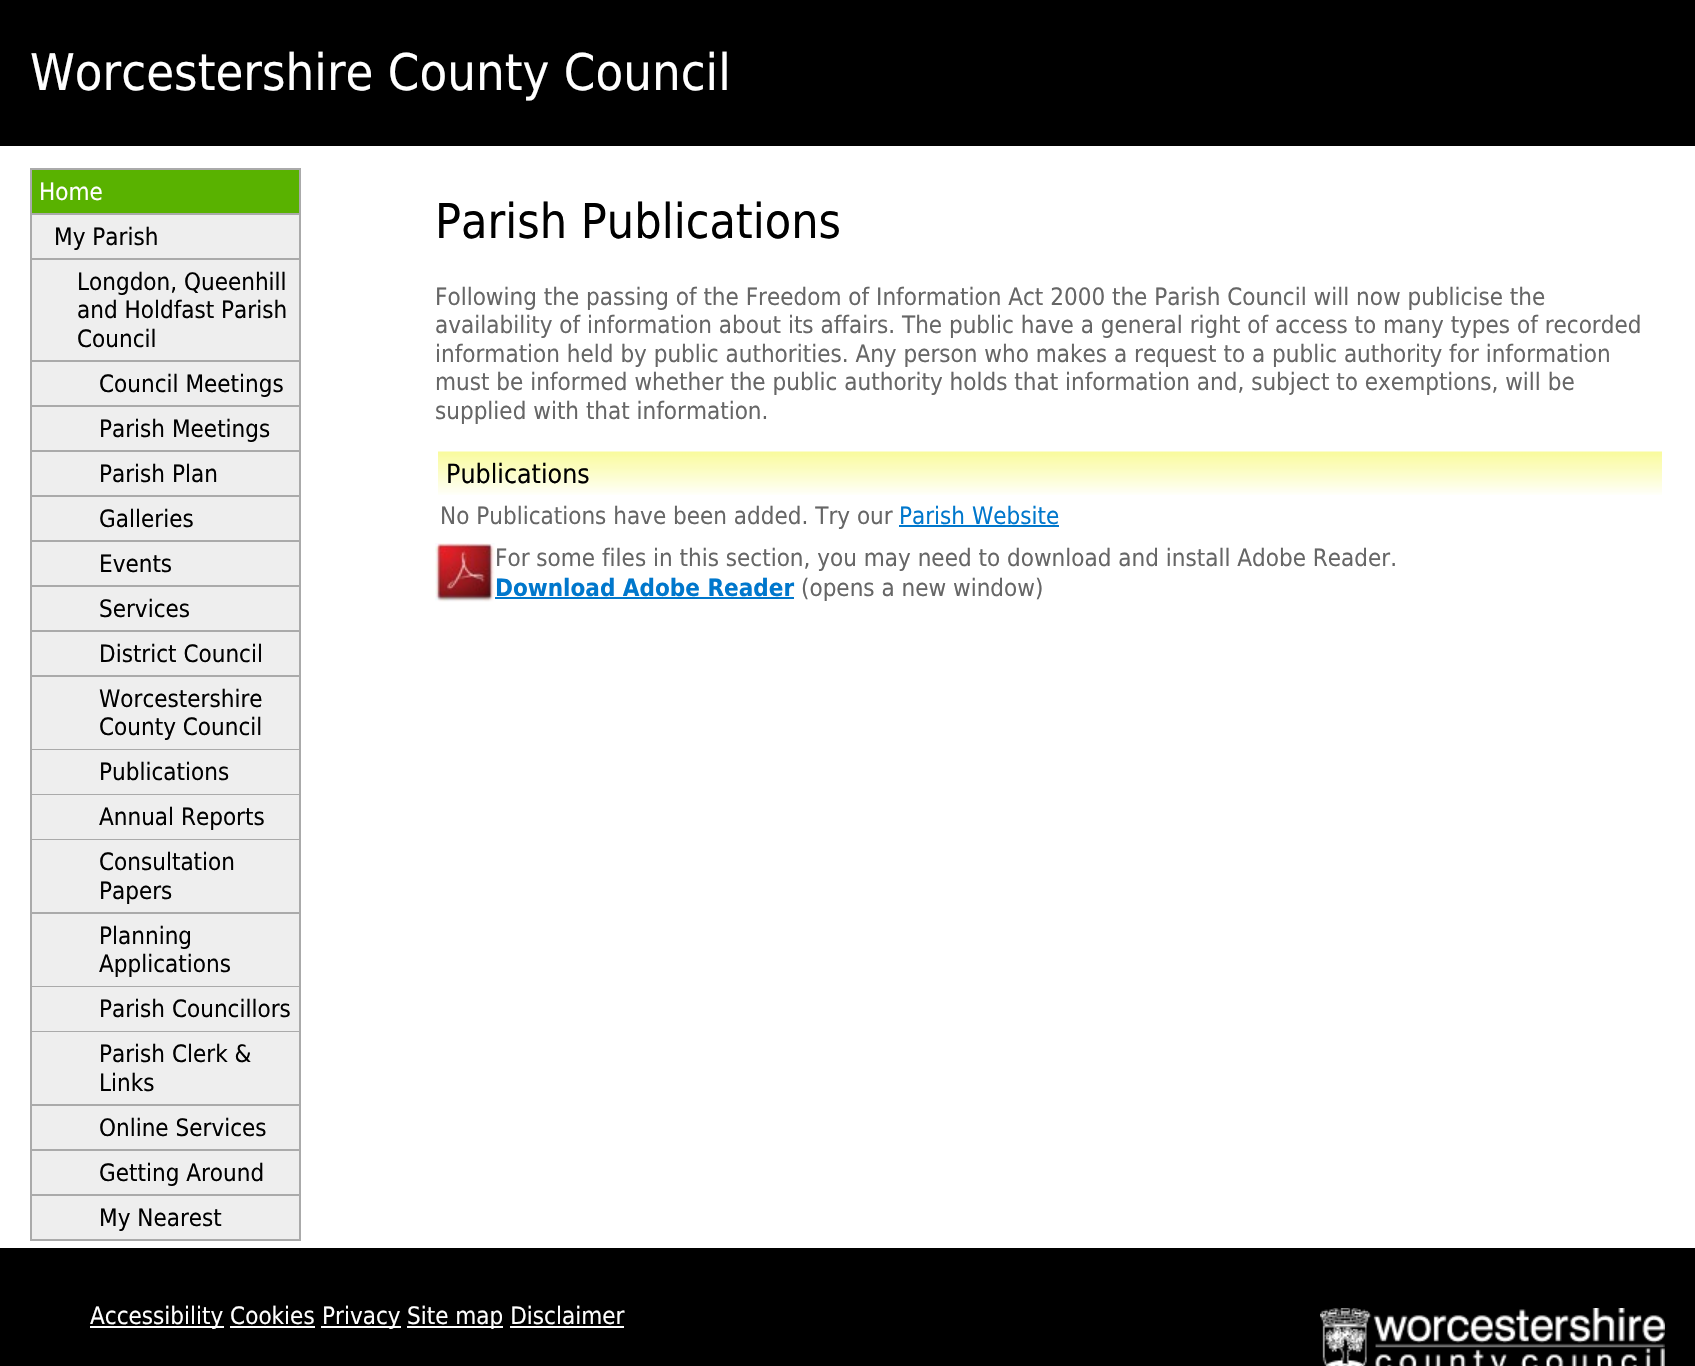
static SkFont makeFont(const char* family, int weight, float size, bool italic = false) {
  SkFontStyle style(weight, SkFontStyle::kNormal_Width,
    italic ? SkFontStyle::kItalic_Slant : SkFontStyle::kUpright_Slant);
  SkFont result(fontMgr->matchFamilyStyle(family, style), size);
  result.setSubpixel(true);
  return result;
}

static void text(SkCanvas* c, const char* s, float x, float y, const SkFont& font, SkColor color) {
  SkPaint ink(SkColor4f::FromColor(color));
  ink.setAntiAlias(true);
  c->drawString(s, x, y, font, ink);
}

static void box(SkCanvas* c, float l, float t, float r, float b, SkColor color) {
  SkPaint ink(SkColor4f::FromColor(color));
  ink.setAntiAlias(true);
  c->drawRect(SkRect::MakeLTRB(l, t, r, b), ink);
}

static void picture(SkCanvas* c, const char* path, float l, float t, float r, float b) {
  auto image = SkImages::DeferredFromEncodedData(SkData::MakeFromFileName(path));
  c->drawImageRect(image, SkRect::MakeLTRB(l, t, r, b), SkSamplingOptions());
}

void draw(SkCanvas* c) {
  SkPaint paint;
  paint.setAntiAlias(true);
  c->clear(0xffffffff);
  box(c, 0, 0, 1695, 146, 0xff000000);
  SkFont face1 = makeFont("DejaVu Sans", 400, 50.4f);
  text(c, "Worcestershire County Council", 30, 90, face1, 0xffffffff);
  box(c, 30, 168, 300, 170, 0xffaaaaaa);
  box(c, 299, 168, 301, 1241, 0xffaaaaaa);
  box(c, 30, 168, 32, 1241, 0xffaaaaaa);
  box(c, 32, 170, 299, 213, 0xff59b200);
  box(c, 32, 213, 299, 215, 0xffaaaaaa);
  SkFont face2 = makeFont("DejaVu Sans", 400, 24);
  text(c, "Home", 39, 200, face2, 0xffffffff);
  box(c, 32, 215, 299, 258, 0xffeeeeee);
  box(c, 32, 258, 299, 260, 0xffaaaaaa);
  text(c, "My Parish", 54, 245, face2, 0xff000000);
  box(c, 32, 260, 299, 360, 0xffeeeeee);
  box(c, 32, 360, 299, 362, 0xffaaaaaa);
  text(c, "Longdon, Queenhill", 77, 290, face2, 0xff000000);
  text(c, "and Holdfast Parish", 77, 318, face2, 0xff000000);
  text(c, "Council", 77, 347, face2, 0xff000000);
  box(c, 32, 362, 299, 405, 0xffeeeeee);
  box(c, 32, 405, 299, 407, 0xffaaaaaa);
  text(c, "Council Meetings", 99, 392, face2, 0xff000000);
  box(c, 32, 407, 299, 450, 0xffeeeeee);
  box(c, 32, 450, 299, 452, 0xffaaaaaa);
  text(c, "Parish Meetings", 99, 437, face2, 0xff000000);
  box(c, 32, 452, 299, 495, 0xffeeeeee);
  box(c, 32, 495, 299, 497, 0xffaaaaaa);
  text(c, "Parish Plan", 99, 482, face2, 0xff000000);
  box(c, 32, 497, 299, 540, 0xffeeeeee);
  box(c, 32, 540, 299, 542, 0xffaaaaaa);
  text(c, "Galleries", 99, 527, face2, 0xff000000);
  box(c, 32, 542, 299, 585, 0xffeeeeee);
  box(c, 32, 585, 299, 587, 0xffaaaaaa);
  text(c, "Events", 99, 572, face2, 0xff000000);
  box(c, 32, 587, 299, 630, 0xffeeeeee);
  box(c, 32, 630, 299, 632, 0xffaaaaaa);
  text(c, "Services", 99, 617, face2, 0xff000000);
  box(c, 32, 632, 299, 675, 0xffeeeeee);
  box(c, 32, 675, 299, 677, 0xffaaaaaa);
  text(c, "District Council", 99, 662, face2, 0xff000000);
  box(c, 32, 677, 299, 749, 0xffeeeeee);
  box(c, 32, 749, 299, 750, 0xffaaaaaa);
  text(c, "Worcestershire", 99, 707, face2, 0xff000000);
  text(c, "County Council", 99, 735, face2, 0xff000000);
  box(c, 32, 750, 299, 794, 0xffeeeeee);
  box(c, 32, 794, 299, 795, 0xffaaaaaa);
  text(c, "Publications", 99, 780, face2, 0xff000000);
  box(c, 32, 795, 299, 839, 0xffeeeeee);
  box(c, 32, 839, 299, 840, 0xffaaaaaa);
  text(c, "Annual Reports", 99, 825, face2, 0xff000000);
  box(c, 32, 840, 299, 912, 0xffeeeeee);
  box(c, 32, 912, 299, 914, 0xffaaaaaa);
  text(c, "Consultation", 99, 870, face2, 0xff000000);
  text(c, "Papers", 99, 899, face2, 0xff000000);
  box(c, 32, 914, 299, 986, 0xffeeeeee);
  box(c, 32, 986, 299, 987, 0xffaaaaaa);
  text(c, "Planning", 99, 944, face2, 0xff000000);
  text(c, "Applications", 99, 972, face2, 0xff000000);
  box(c, 32, 987, 299, 1031, 0xffeeeeee);
  box(c, 32, 1031, 299, 1032, 0xffaaaaaa);
  text(c, "Parish Councillors", 99, 1017, face2, 0xff000000);
  box(c, 32, 1032, 299, 1104, 0xffeeeeee);
  box(c, 32, 1104, 299, 1106, 0xffaaaaaa);
  text(c, "Parish Clerk &", 99, 1062, face2, 0xff000000);
  text(c, "Links", 99, 1091, face2, 0xff000000);
  box(c, 32, 1106, 299, 1149, 0xffeeeeee);
  box(c, 32, 1149, 299, 1151, 0xffaaaaaa);
  text(c, "Online Services", 99, 1136, face2, 0xff000000);
  box(c, 32, 1151, 299, 1194, 0xffeeeeee);
  box(c, 32, 1194, 299, 1196, 0xffaaaaaa);
  text(c, "Getting Around", 99, 1181, face2, 0xff000000);
  box(c, 32, 1196, 299, 1239, 0xffeeeeee);
  box(c, 32, 1239, 299, 1241, 0xffaaaaaa);
  text(c, "My Nearest", 99, 1226, face2, 0xff000000);
  SkFont face3 = makeFont("DejaVu Sans", 400, 48);
  text(c, "Parish Publications", 435, 238, face3, 0xff000000);
  text(c, "Following the passing of the Freedom of Information Act 2000 the Parish Council will now publicise the", 435, 305, face2, 0xff666666);
  text(c, "availability of information about its affairs. The public have a general right of access to many types of recorded", 435, 333, face2, 0xff666666);
  text(c, "information held by public authorities. Any person who makes a request to a public authority for information", 435, 362, face2, 0xff666666);
  text(c, "must be informed whether the public authority holds that information and, subject to exemptions, will be", 435, 390, face2, 0xff666666);
  text(c, "supplied with that information.", 435, 419, face2, 0xff666666);
  picture(c, "img_01.png", 438, 451, 1662, 495);
  SkFont face4 = makeFont("DejaVu Sans", 400, 26.5f);
  text(c, "Publications", 446, 483, face4, 0xff000000);
  text(c, "No Publications have been added. Try our", 440, 524, face2, 0xff666666);
  text(c, "Parish Website", 899, 524, face2, 0xff0077cc);
  box(c, 899, 525, 1059, 527, 0xff0077cc);
  picture(c, "img_02.png", 435, 543, 495, 602);
  text(c, "For some files in this section, you may need to download and install Adobe Reader.", 495, 566, face2, 0xff666666);
  SkFont face5 = makeFont("DejaVu Sans", 700, 24);
  text(c, "Download Adobe Reader", 495, 596, face5, 0xff0077cc);
  box(c, 495, 597, 794, 599, 0xff0077cc);
  text(c, "(opens a new window)", 801, 596, face2, 0xff666666);
  box(c, 0, 1248, 1695, 1366, 0xff000000);
  picture(c, "img_03.png", 1320, 1308, 1665, 1366);
  box(c, 90, 1326, 224, 1328, 0xffffffff);
  text(c, "Accessibility Cookies", 90, 1324, face2, 0xffffffff);
  box(c, 321, 1326, 401, 1328, 0xffffffff);
  text(c, "Privacy", 322, 1324, face2, 0xffffffff);
  box(c, 407, 1326, 503, 1328, 0xffffffff);
  text(c, "Site map Disclaimer", 407, 1324, face2, 0xffffffff);
  box(c, 230, 1326, 315, 1328, 0xffffffff);
  box(c, 510, 1326, 624, 1328, 0xffffffff);
}
